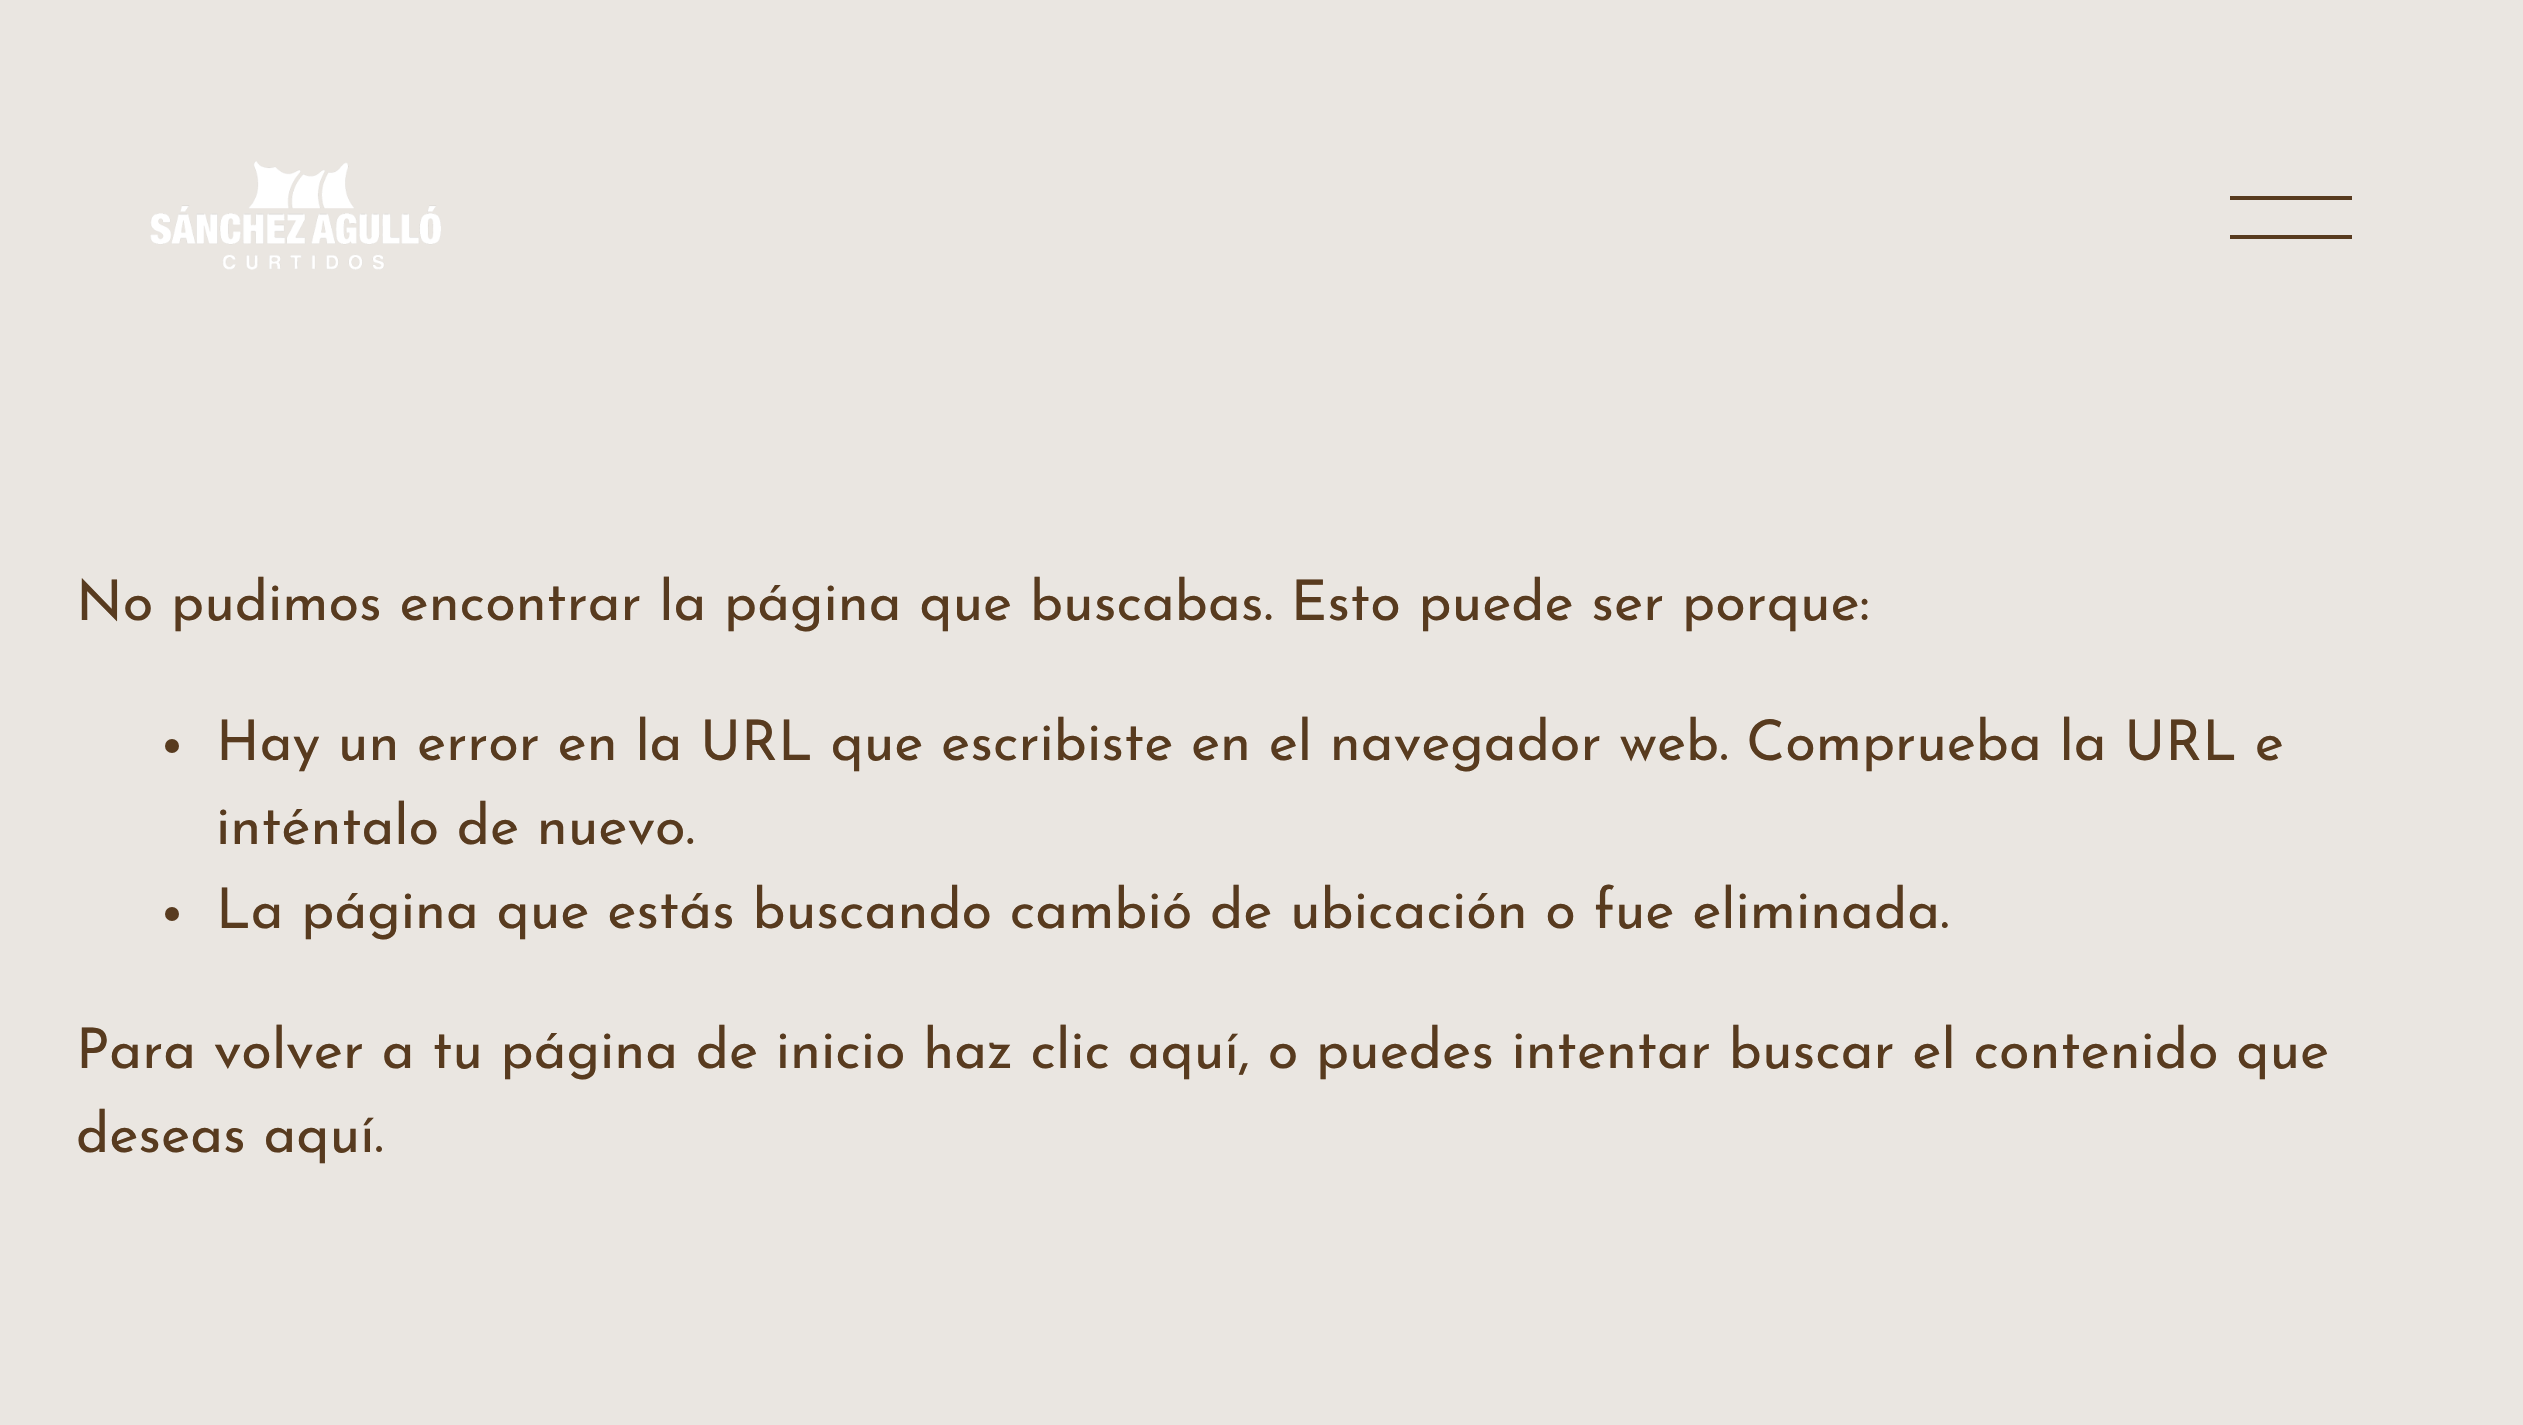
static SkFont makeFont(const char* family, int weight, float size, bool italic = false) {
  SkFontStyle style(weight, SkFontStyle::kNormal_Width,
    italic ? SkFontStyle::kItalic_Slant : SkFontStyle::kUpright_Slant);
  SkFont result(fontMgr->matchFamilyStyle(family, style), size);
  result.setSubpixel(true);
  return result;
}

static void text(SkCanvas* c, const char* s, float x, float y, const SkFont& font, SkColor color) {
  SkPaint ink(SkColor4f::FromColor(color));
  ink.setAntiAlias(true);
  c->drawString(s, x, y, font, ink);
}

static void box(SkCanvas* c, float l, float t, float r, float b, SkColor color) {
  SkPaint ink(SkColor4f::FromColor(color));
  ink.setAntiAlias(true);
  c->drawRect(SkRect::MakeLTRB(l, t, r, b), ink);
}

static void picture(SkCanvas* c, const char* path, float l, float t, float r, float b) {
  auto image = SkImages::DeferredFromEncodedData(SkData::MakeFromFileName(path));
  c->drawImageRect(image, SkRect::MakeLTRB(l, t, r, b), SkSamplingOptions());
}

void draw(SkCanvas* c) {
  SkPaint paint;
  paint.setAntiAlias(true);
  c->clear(0xffeae6e1);
  picture(c, "img_01.png", 150, 161, 441, 270);
  box(c, 2230, 196, 2352, 200, 0xff583b1f);
  box(c, 2230, 235, 2352, 239, 0xff583b1f);
  SkFont face1 = makeFont("Josefin Sans", 400, 56);
  text(c, "No pudimos encontrar la página que buscabas. Esto puede ser porque:", 76, 620, face1, 0xff583b1f);
  paint.setColor(0xff583b1f);
  c->drawCircle(172, 746, 7, paint);
  text(c, "Hay un error en la URL que escribiste en el navegador web. Comprueba la URL e", 216, 760, face1, 0xff583b1f);
  text(c, "inténtalo de nuevo.", 216, 844, face1, 0xff583b1f);
  c->drawCircle(172, 914, 7, paint);
  text(c, "La página que estás buscando cambió de ubicación o fue eliminada.", 216, 928, face1, 0xff583b1f);
  text(c, "Para volver a tu página de inicio haz clic aquí, o puedes intentar buscar el contenido que", 76, 1068, face1, 0xff583b1f);
  text(c, "deseas aquí.", 76, 1152, face1, 0xff583b1f);
}
